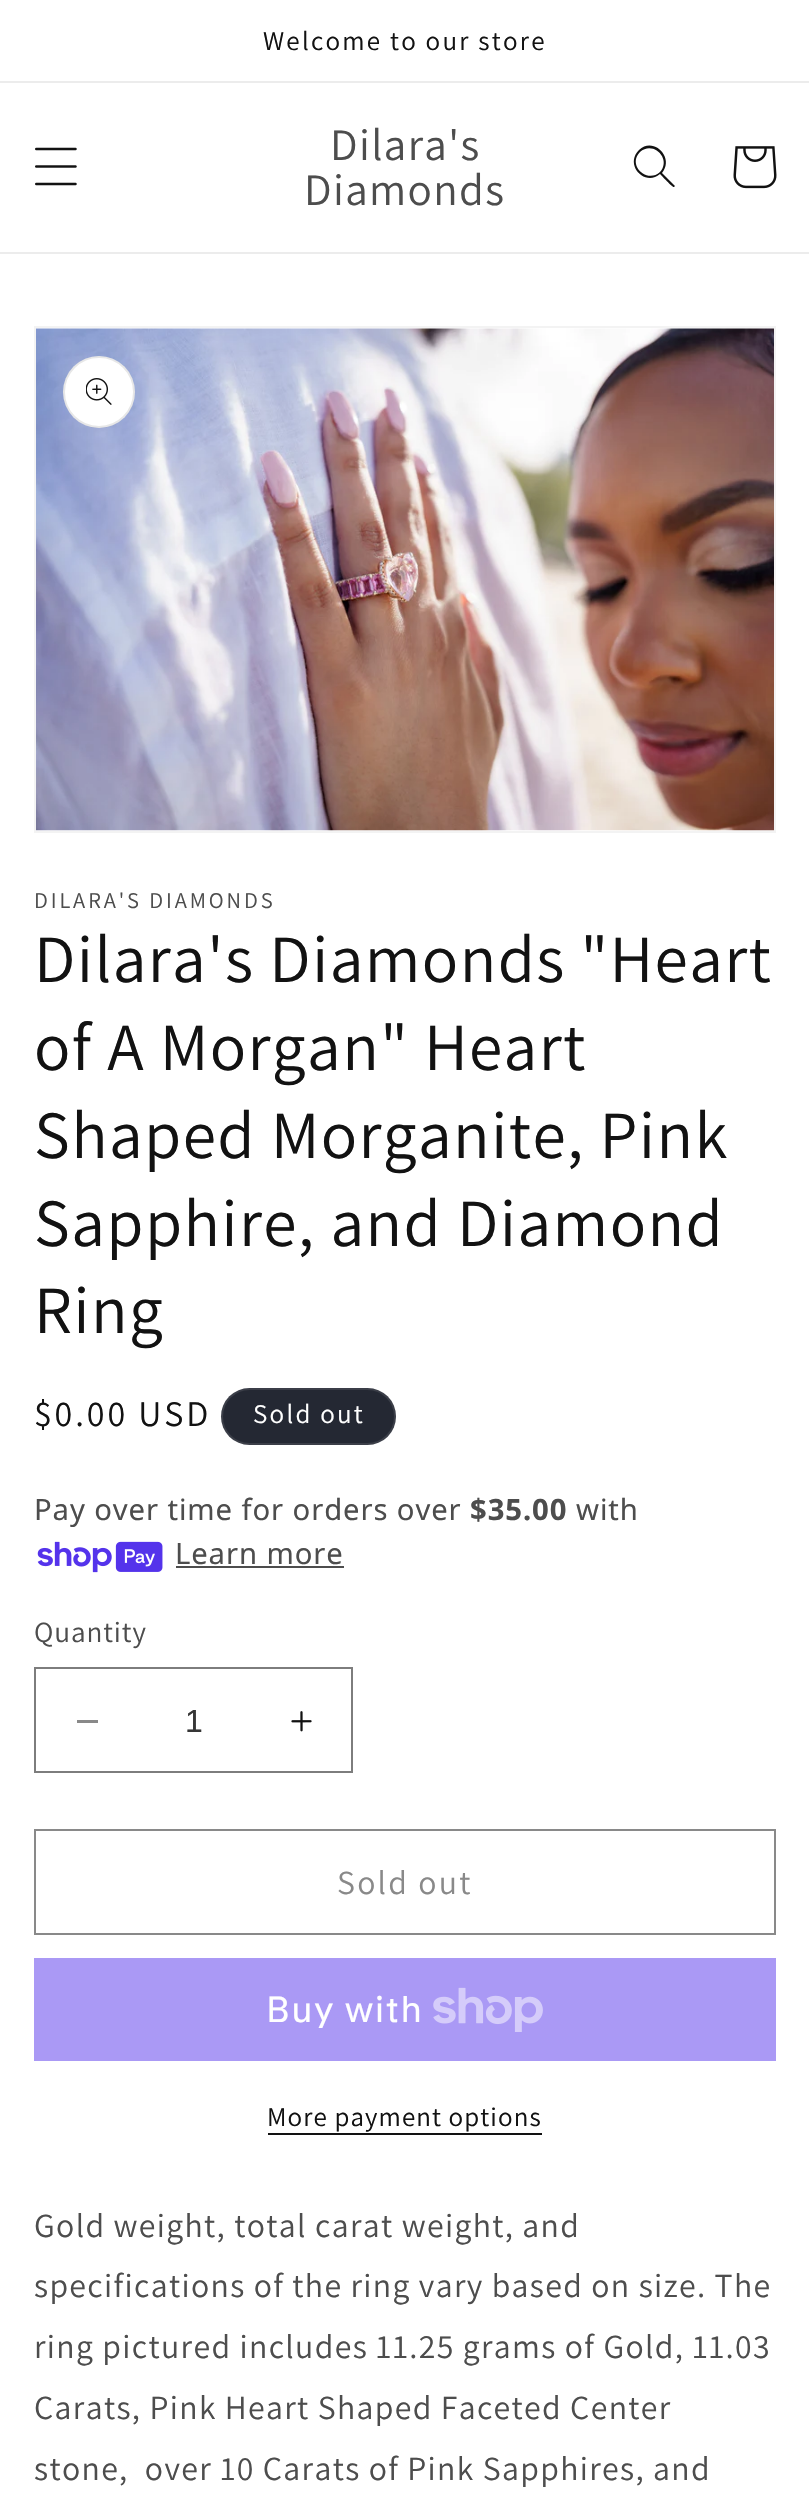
static SkFont makeFont(const char* family, int weight, float size, bool italic = false) {
  SkFontStyle style(weight, SkFontStyle::kNormal_Width,
    italic ? SkFontStyle::kItalic_Slant : SkFontStyle::kUpright_Slant);
  SkFont result(fontMgr->matchFamilyStyle(family, style), size);
  result.setSubpixel(true);
  return result;
}

static void text(SkCanvas* c, const char* s, float x, float y, const SkFont& font, SkColor color) {
  SkPaint ink(SkColor4f::FromColor(color));
  ink.setAntiAlias(true);
  c->drawString(s, x, y, font, ink);
}

static void spacedText(SkCanvas* c, const char* s, float x, float y, const SkFont& font, const SkPaint& ink, float letter, float word) {
  std::vector<SkGlyphID> glyphs(font.countText(s, strlen(s), SkTextEncoding::kUTF8));
  std::vector<float> xs(glyphs.size());
  font.textToGlyphs(s, strlen(s), SkTextEncoding::kUTF8, glyphs);
  font.getXPos(glyphs, xs, x);
  float extra = 0;
  for (size_t i = 0; i < glyphs.size(); i++) {
    xs[i] += extra;
    extra += letter + word * (glyphs[i] == font.unicharToGlyph(' '));
  }
  c->drawTextBlob(SkTextBlob::MakeFromPosHGlyphs(glyphs, xs, y, font), 0, 0, ink);
}

static void box(SkCanvas* c, float l, float t, float r, float b, SkColor color) {
  SkPaint ink(SkColor4f::FromColor(color));
  ink.setAntiAlias(true);
  c->drawRect(SkRect::MakeLTRB(l, t, r, b), ink);
}

static void roundBox(SkCanvas* c, float l, float t, float r, float b, float radius, SkColor color) {
  SkPaint ink(SkColor4f::FromColor(color));
  ink.setAntiAlias(true);
  c->drawRoundRect(SkRect::MakeLTRB(l, t, r, b), radius, radius, ink);
}

static void picture(SkCanvas* c, const char* path, float l, float t, float r, float b) {
  auto image = SkImages::DeferredFromEncodedData(SkData::MakeFromFileName(path));
  c->drawImageRect(image, SkRect::MakeLTRB(l, t, r, b), SkSamplingOptions());
}

void draw(SkCanvas* c) {
  SkPaint paint;
  paint.setAntiAlias(true);
  c->clear(0xffffffff);
  box(c, 0, 81, 809, 83, 0xffececec);
  SkFont face1 = makeFont("Assistant", 400, 27);
  paint.setColor(0xff121212);
  spacedText(c, "Welcome to our store", 263, 50, face1, paint, 2.25f, 0);
  box(c, 0, 252, 809, 254, 0xffececec);
  picture(c, "img_01.png", 35, 147, 77, 186);
  SkFont face2 = makeFont("Assistant", 400, 45);
  paint.setColor(0xff4d4d4d);
  spacedText(c, "Dilara's", 330, 160, face2, paint, 1.35f, 0);
  spacedText(c, "Diamonds", 304, 205, face2, paint, 1.35f, 0);
  paint.setColor(0xff121212);
  c->drawPath(SkPathBuilder(SkPathFillType::kEvenOdd).moveTo(660, 172).cubicTo(647, 184, 627, 165, 640, 152).cubicTo(653, 140, 672, 159, 660, 172).close().moveTo(660, 174).cubicTo(645, 187, 624, 165, 639, 150).cubicTo(653, 136, 675, 157, 662, 173).lineTo(675, 186).lineTo(674, 187).cubicTo(673, 188, 662, 176, 660, 174).close().detach(), paint);
  picture(c, "img_02.png", 733, 146, 777, 189);
  paint.setStyle(SkPaint::kStroke_Style);
  paint.setStrokeWidth(2);
  paint.setColor(0xfff3f3f3);
  c->drawRect(SkRect::MakeLTRB(35, 327, 775, 832), paint);
  picture(c, "img_03.png", 36, 328, 774, 831);
  paint.setStyle(SkPaint::kFill_Style);
  paint.setColor(0xffffffff);
  c->drawCircle(99, 392, 36, paint);
  paint.setStyle(SkPaint::kStroke_Style);
  paint.setColor(0x1a121212);
  c->drawCircle(99, 392, 35, paint);
  picture(c, "img_04.png", 86, 378, 112, 405);
  SkFont face3 = makeFont("Assistant", 400, 22.5f);
  paint.setStyle(SkPaint::kFill_Style);
  paint.setColor(0xff4d4d4d);
  spacedText(c, "DILARA'S DIAMONDS", 34, 908, face3, paint, 2.9f, 0);
  SkFont face4 = makeFont("Assistant", 400, 67.5f);
  paint.setColor(0xff121212);
  spacedText(c, "Dilara's Diamonds \"Heart", 34, 982, face4, paint, 1.35f, 0);
  spacedText(c, "of A Morgan\" Heart", 34, 1070, face4, paint, 1.35f, 0);
  spacedText(c, "Shaped Morganite, Pink", 34, 1158, face4, paint, 1.35f, 0);
  spacedText(c, "Sapphire, and Diamond", 34, 1246, face4, paint, 1.35f, 0);
  spacedText(c, "Ring", 34, 1333, face4, paint, 1.35f, 0);
  SkFont face5 = makeFont("Assistant", 400, 36);
  spacedText(c, "$0.00 USD", 34, 1426, face5, paint, 2.9f, 0);
  roundBox(c, 221, 1388, 396, 1445, 28.5f, 0xff242833);
  paint.setStyle(SkPaint::kStroke_Style);
  paint.setColor(0x1affffff);
  c->drawRoundRect(SkRect::MakeLTRB(222, 1389, 395, 1444), 27.5f, 27.5f, paint);
  paint.setStyle(SkPaint::kFill_Style);
  paint.setColor(0xffffffff);
  spacedText(c, "Sold out", 253, 1423, face1, paint, 2.25f, 0);
  SkFont face6 = makeFont("Noto Sans", 400, 29.25f);
  paint.setColor(0xff4d4d4d);
  spacedText(c, "Pay over time for orders over", 34, 1520, face6, paint, 0.9f, 0);
  SkFont face7 = makeFont("Noto Sans", 700, 29.25f);
  spacedText(c, "$35.00", 470, 1520, face7, paint, 0.9f, 0);
  spacedText(c, "with", 576, 1520, face6, paint, 0.9f, 0);
  picture(c, "img_05.png", 37, 1541, 163, 1573);
  spacedText(c, "Learn more", 175, 1564, face6, paint, 0.9f, 0);
  box(c, 176, 1566, 344, 1568, 0xff4d4d4d);
  SkFont face8 = makeFont("Assistant", 400, 29.25f);
  spacedText(c, "Quantity", 34, 1642, face8, paint, 0.9f, 0);
  box(c, 77, 1720, 98, 1723, 0xff898989);
  picture(c, "img_06.png", 291, 1711, 312, 1732);
  paint.setStyle(SkPaint::kStroke_Style);
  paint.setColor(0xff7d7d7d);
  c->drawRect(SkRect::MakeLTRB(35, 1668, 352, 1772), paint);
  SkFont face9 = makeFont("Liberation Sans", 400, 32);
  text(c, "1", 185, 1732, face9, 0xff363636);
  paint.setColor(0xff898989);
  c->drawRect(SkRect::MakeLTRB(35, 1830, 775, 1934), paint);
  SkFont face10 = makeFont("Assistant", 400, 33.75f);
  paint.setStyle(SkPaint::kFill_Style);
  spacedText(c, "Sold out", 337, 1894, face10, paint, 2.25f, 0);
  box(c, 34, 1958, 776, 2061, 0xffaa99f5);
  SkFont face11 = makeFont("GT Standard", 400, 36);
  paint.setColor(0xffffffff);
  spacedText(c, "Buy with", 266, 2022, face11, paint, 1.35f, 0);
  picture(c, "img_07.png", 433, 1987, 543, 2032);
  paint.setColor(0xff121212);
  spacedText(c, "More payment options", 267, 2126, face1, paint, 1.1f, 0);
  box(c, 268, 2133, 542, 2135, 0xff121212);
  paint.setColor(0xff4d4d4d);
  spacedText(c, "Gold weight, total carat weight, and", 34, 2237, face10, paint, 1.35f, 0);
  spacedText(c, "specifications of the ring vary based on size. The", 34, 2297, face10, paint, 1.35f, 0);
  spacedText(c, "ring pictured includes 11.25 grams of Gold, 11.03", 34, 2358, face10, paint, 1.35f, 0);
  spacedText(c, "Carats, Pink Heart Shaped Faceted Center", 34, 2419, face10, paint, 1.35f, 0);
  spacedText(c, "stone,  over 10 Carats of Pink Sapphires, and", 34, 2480, face10, paint, 1.35f, 0);
}
